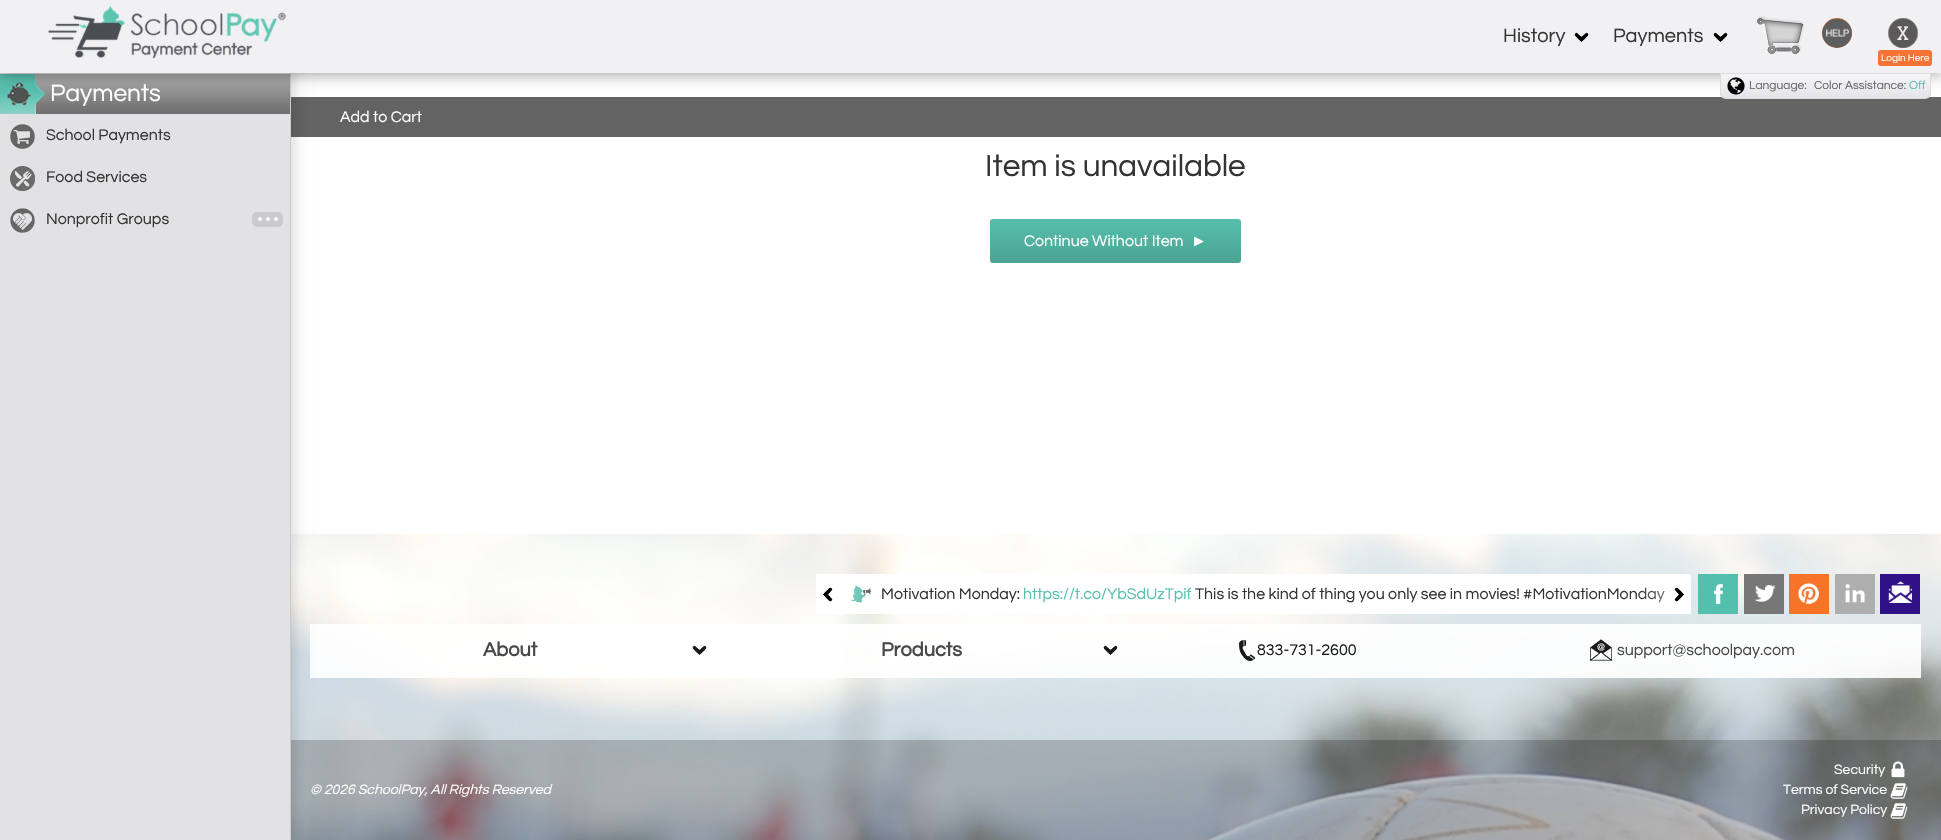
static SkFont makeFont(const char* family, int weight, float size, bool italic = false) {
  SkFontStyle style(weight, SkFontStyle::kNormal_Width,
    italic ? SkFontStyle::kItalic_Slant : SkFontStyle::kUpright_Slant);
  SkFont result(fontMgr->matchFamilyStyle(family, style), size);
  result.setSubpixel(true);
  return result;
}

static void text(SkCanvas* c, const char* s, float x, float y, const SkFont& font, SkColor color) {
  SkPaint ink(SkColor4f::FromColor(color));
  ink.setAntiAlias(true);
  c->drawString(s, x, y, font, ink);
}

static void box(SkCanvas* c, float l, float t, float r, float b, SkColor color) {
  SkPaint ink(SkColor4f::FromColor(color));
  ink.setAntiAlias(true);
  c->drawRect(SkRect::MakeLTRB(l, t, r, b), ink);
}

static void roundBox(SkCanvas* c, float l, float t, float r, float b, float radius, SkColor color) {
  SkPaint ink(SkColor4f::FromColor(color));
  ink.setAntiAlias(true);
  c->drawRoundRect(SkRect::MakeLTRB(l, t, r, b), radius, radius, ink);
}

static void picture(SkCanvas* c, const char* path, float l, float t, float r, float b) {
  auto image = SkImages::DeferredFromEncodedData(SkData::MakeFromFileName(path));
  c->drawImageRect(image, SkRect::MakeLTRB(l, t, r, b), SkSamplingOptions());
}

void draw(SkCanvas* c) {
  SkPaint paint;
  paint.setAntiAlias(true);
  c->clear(0xffffffff);
  box(c, 291, 97, 1941, 137, 0xff636363);
  picture(c, "img_11.png", 291, 534, 1941, 840);
  box(c, 310, 624, 721, 678, 0xe6ffffff);
  box(c, 291, 740, 1941, 840, 0x33000000);
  paint.setColor(0x33000000);
  paint.setMaskFilter(SkMaskFilter::MakeBlur(kNormal_SkBlurStyle, 8));
  c->drawRect(SkRect::MakeLTRB(0, 0, 291, 840), paint);
  paint.setMaskFilter(nullptr);
  box(c, 0, 73, 290, 840, 0xffe2e2e5);
  box(c, 290, 73, 291, 840, 0xffcbcbcf);
  picture(c, "img_07.png", 0, 74, 290, 114);
  paint.setColor(0x66000005);
  paint.setMaskFilter(SkMaskFilter::MakeBlur(kNormal_SkBlurStyle, 7.5f));
  c->drawRect(SkRect::MakeLTRB(-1, 1, 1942, 74), paint);
  paint.setMaskFilter(nullptr);
  box(c, 0, 0, 1941, 73, 0xfff1f1f4);
  picture(c, "img_01.png", 48, 6, 286, 59);
  picture(c, "img_02.png", 1574, 32, 1589, 42);
  SkFont face1 = makeFont("Questrial", 400, 20);
  text(c, "History", 1503, 42, face1, 0xff333333);
  picture(c, "img_02.png", 1713, 32, 1728, 42);
  text(c, "Payments", 1613, 42, face1, 0xff333333);
  picture(c, "img_03.png", 1757, 16, 1804, 54);
  paint.setColor(0xfff57334);
  c->drawCircle(1837, 33, 15, paint);
  picture(c, "img_04.png", 1822, 18, 1852, 48);
  picture(c, "img_05.png", 1888, 18, 1918, 48);
  SkFont face2 = makeFont("Graduate", 400, 18);
  text(c, "X", 1897, 40, face2, 0xffeeeeee);
  roundBox(c, 1878, 50, 1932, 66, 3, 0xfff57334);
  SkFont face3 = makeFont("Questrial", 400, 10);
  text(c, "Login Here", 1881, 61, face3, 0xffffffff);
  c->save();
  c->clipPath(SkPathBuilder().moveTo(1720, 73).lineTo(1931, 73).lineTo(1931, 93).cubicTo(1931, 96.5f, 1928.5f, 99, 1925, 99).lineTo(1726, 99).cubicTo(1722.5f, 99, 1720, 96.5f, 1720, 93).close().detach(), true);
  {
    const SkColor colors[] = {0xfff5f5f9, 0xffe5e5e9};
    const float stops[] = {0.05f, 1};
    const SkPoint ends[] = {{1826, 74}, {1826, 98}};
    paint.setShader(SkGradientShader::MakeLinear(ends, colors, stops, 2, SkTileMode::kClamp));
    paint.setAlpha(255);
  }
  c->drawRect(SkRect::MakeLTRB(1720, 74, 1931, 98), paint);
  c->restore();
  paint.setStyle(SkPaint::kStroke_Style);
  paint.setStrokeWidth(1);
  paint.setShader(nullptr);
  paint.setColor(0xffdcdcdc);
  c->drawPath(SkPathBuilder().moveTo(1720.5f, 73.5f).lineTo(1930.5f, 73.5f).lineTo(1930.5f, 93).cubicTo(1930.5f, 96, 1928, 98.5f, 1925, 98.5f).lineTo(1726, 98.5f).cubicTo(1723, 98.5f, 1720.5f, 96, 1720.5f, 93).close().detach(), paint);
  picture(c, "img_06.png", 1727, 77, 1745, 95);
  SkFont face4 = makeFont("Questrial", 400, 12);
  text(c, "Language:", 1749, 89, face4, 0xff666666);
  text(c, "Color Assistance:", 1814, 89, face4, 0xff666666);
  text(c, "Off", 1909, 89, face4, 0xff57bfac);
  SkFont face5 = makeFont("Questrial", 400, 24.5f);
  text(c, "Payments", 50, 101, face5, 0xffffffff);
  picture(c, "img_08.png", 10, 124, 35, 149);
  SkFont face6 = makeFont("Questrial", 400, 16);
  text(c, "School Payments", 46, 140, face6, 0xff333333);
  picture(c, "img_09.png", 10, 166, 35, 191);
  text(c, "Food Services", 46, 182, face6, 0xff333333);
  picture(c, "img_10.png", 10, 208, 35, 233);
  text(c, "Nonprofit Groups", 46, 224, face6, 0xff333333);
  roundBox(c, 252, 212, 283, 227, 5, 0xffcbcbcd);
  paint.setStyle(SkPaint::kFill_Style);
  paint.setColor(0xffffffff);
  c->drawCircle(260, 219, 2, paint);
  c->drawCircle(268, 219, 2, paint);
  c->drawCircle(276, 219, 2, paint);
  text(c, "Add to Cart", 340, 122, face6, 0xffffffff);
  SkFont face7 = makeFont("Questrial", 400, 31.5f);
  text(c, "Item is unavailable", 985, 176, face7, 0xff333333);
  {
    const SkColor colors[] = {0xff57bfac, 0xff4ba393};
    const float stops[] = {0, 1};
    const SkPoint ends[] = {{1116, 219}, {1116, 263}};
    paint.setShader(SkGradientShader::MakeLinear(ends, colors, stops, 2, SkTileMode::kClamp));
    paint.setAlpha(255);
  }
  c->drawRoundRect(SkRect::MakeLTRB(990, 219, 1241, 263), 3, 3, paint);
  text(c, "Continue Without Item", 1024, 246, face6, 0xffffffff);
  SkFont face8 = makeFont("Liberation Serif", 400, 16);
  text(c, "►", 1191, 246, face8, 0xffffffff);
  box(c, 816, 574, 1691, 614, 0xffffffff);
  picture(c, "img_13.png", 851, 585, 871, 603);
  {
    const SkColor colors[] = {0x80ffffff, 0x00ffffff};
    const float stops[] = {0, 1};
    const SkPoint ends[] = {{826, 574}, {871, 574}};
    paint.setShader(SkGradientShader::MakeLinear(ends, colors, stops, 2, SkTileMode::kClamp));
    paint.setAlpha(255);
  }
  c->drawRect(SkRect::MakeLTRB(851, 585, 869, 603), paint);
  picture(c, "img_12.png", 823, 587, 833, 602);
  text(c, "Motivation Monday:", 881, 599, face6, 0xff333333);
  text(c, "https://t.co/YbSdUzTpif", 1023, 599, face6, 0xff57bfac);
  text(c, "This is the kind of thing you only see in movies! #MotivationMonday", 1195, 599, face6, 0xff333333);
  {
    const SkColor colors[] = {0x80ffffff, 0x00ffffff};
    const float stops[] = {0, 1};
    const SkPoint ends[] = {{1681, 574}, {1636, 574}};
    paint.setShader(SkGradientShader::MakeLinear(ends, colors, stops, 2, SkTileMode::kClamp));
    paint.setAlpha(255);
  }
  c->drawRect(SkRect::MakeLTRB(1638, 587, 1665, 603), paint);
  picture(c, "img_14.png", 1674, 587, 1684, 602);
  picture(c, "img_15.png", 1698, 574, 1738, 614);
  picture(c, "img_16.png", 1744, 574, 1784, 614);
  picture(c, "img_17.png", 1789, 574, 1829, 614);
  picture(c, "img_18.png", 1835, 574, 1875, 614);
  picture(c, "img_19.png", 1880, 574, 1920, 614);
  picture(c, "img_20.png", 692, 645, 707, 655);
  SkFont face9 = makeFont("Questrial", 700, 20);
  text(c, "About", 483, 656, face9, 0xff474747);
  box(c, 721, 624, 1132, 678, 0xe6ffffff);
  picture(c, "img_21.png", 1103, 645, 1118, 655);
  text(c, "Products", 881, 656, face9, 0xff474747);
  box(c, 1132, 624, 1461, 678, 0xe6ffffff);
  picture(c, "img_22.png", 1239, 640, 1255, 661);
  text(c, "833-731-2600", 1257, 655, face6, 0xff191919);
  box(c, 1461, 624, 1921, 678, 0xe6ffffff);
  picture(c, "img_23.png", 1590, 639, 1612, 661);
  text(c, "support@schoolpay.com", 1617, 655, face6, 0xff474747);
  SkFont face10 = makeFont("Questrial", 400, 14, true);
  text(c, "© 2026 SchoolPay, All Rights Reserved", 310, 794, face10, 0xffffffff);
  SkFont face11 = makeFont("Questrial", 400, 14);
  text(c, "Security", 1834, 774, face11, 0xffffffff);
  picture(c, "img_24.png", 1891, 761, 1905, 778);
  text(c, "Terms of Service", 1783, 794, face11, 0xffffffff);
  picture(c, "img_25.png", 1890, 783, 1908, 799);
  text(c, "Privacy Policy", 1801, 814, face11, 0xffffffff);
  picture(c, "img_26.png", 1890, 803, 1908, 819);
}
